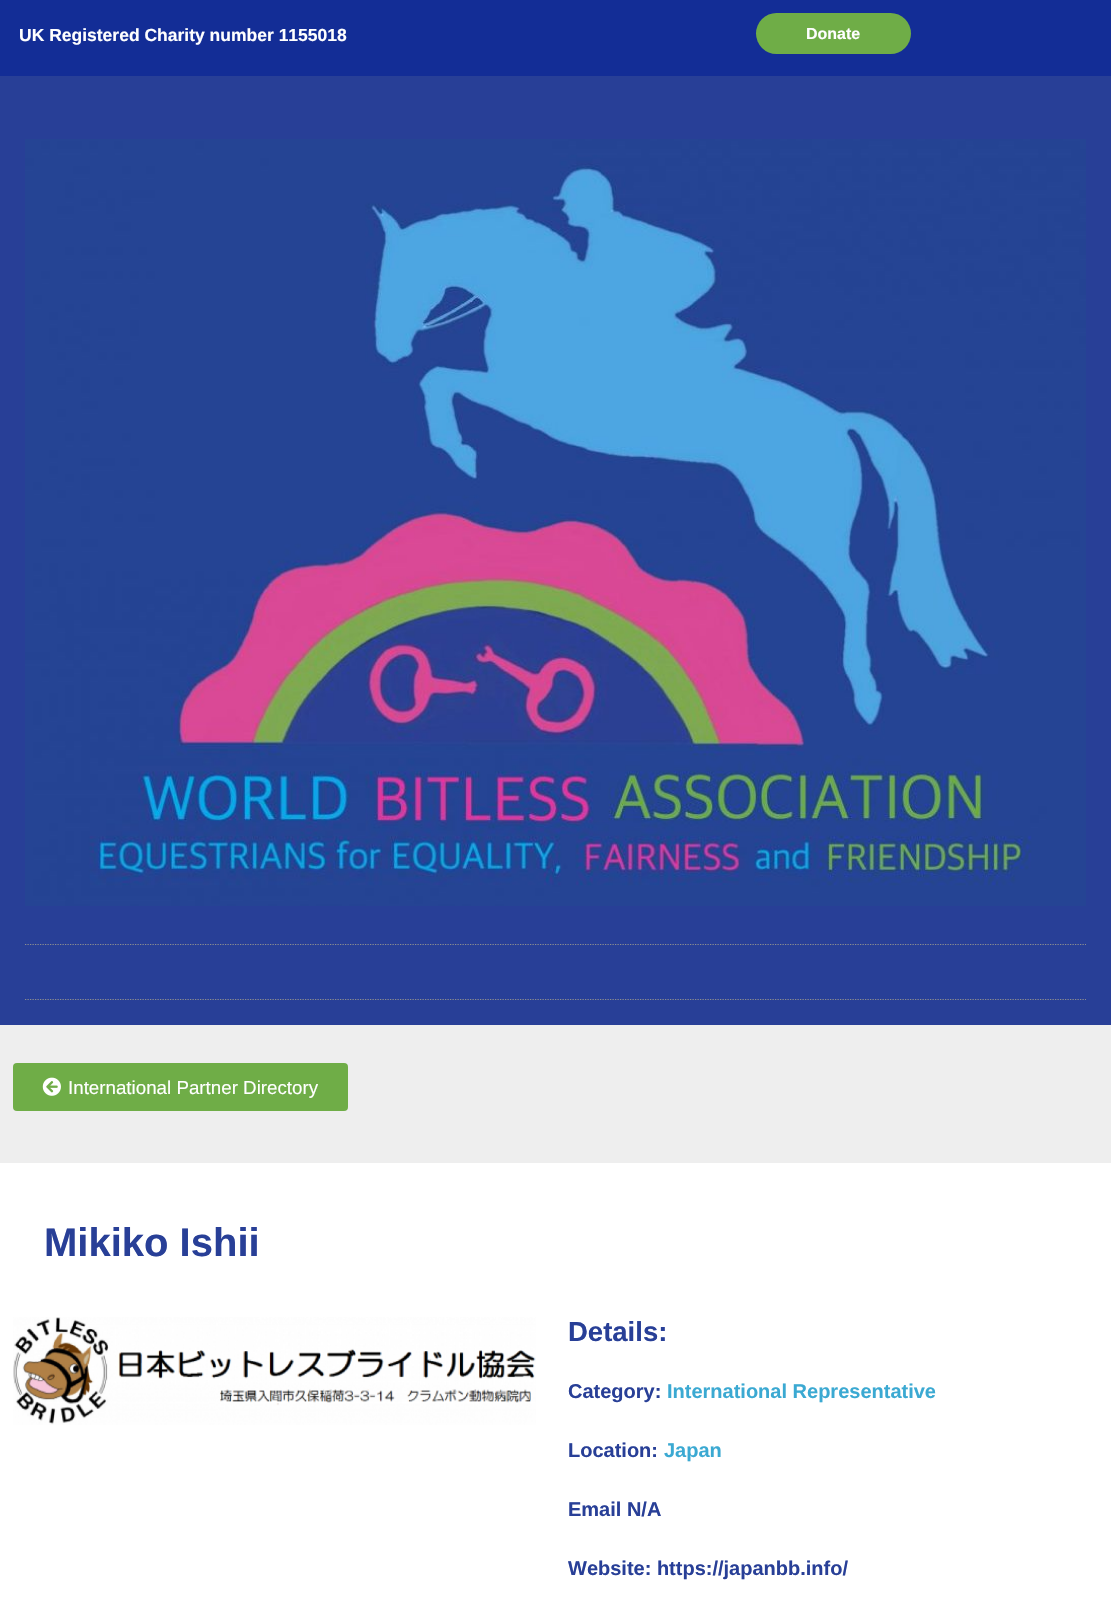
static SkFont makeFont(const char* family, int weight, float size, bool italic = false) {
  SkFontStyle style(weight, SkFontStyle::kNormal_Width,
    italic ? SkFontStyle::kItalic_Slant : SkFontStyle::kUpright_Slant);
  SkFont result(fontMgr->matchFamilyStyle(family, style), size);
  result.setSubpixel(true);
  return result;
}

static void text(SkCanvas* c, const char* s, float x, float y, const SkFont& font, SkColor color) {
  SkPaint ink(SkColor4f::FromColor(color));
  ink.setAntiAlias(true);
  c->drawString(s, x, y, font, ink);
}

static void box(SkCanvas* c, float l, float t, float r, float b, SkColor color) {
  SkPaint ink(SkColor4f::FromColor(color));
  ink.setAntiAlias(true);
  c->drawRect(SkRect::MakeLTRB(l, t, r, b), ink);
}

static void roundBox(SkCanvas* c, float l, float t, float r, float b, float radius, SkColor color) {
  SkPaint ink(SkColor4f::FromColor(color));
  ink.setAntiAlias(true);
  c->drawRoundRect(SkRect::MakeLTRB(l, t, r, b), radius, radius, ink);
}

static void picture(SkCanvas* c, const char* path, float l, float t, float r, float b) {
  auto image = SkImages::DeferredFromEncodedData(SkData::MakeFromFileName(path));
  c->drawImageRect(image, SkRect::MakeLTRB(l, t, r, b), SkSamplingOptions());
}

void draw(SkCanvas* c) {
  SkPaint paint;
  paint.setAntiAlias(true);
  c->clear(0xffffffff);
  box(c, 0, 0, 1111, 76, 0xff132d96);
  SkFont face1 = makeFont("Liberation Sans", 700, 17.5f);
  text(c, "UK Registered Charity number 1155018", 19, 41, face1, 0xffffffff);
  roundBox(c, 756, 13, 911, 54, 20.5f, 0xff6fad47);
  SkFont face2 = makeFont("Liberation Sans", 700, 16);
  text(c, "Donate", 806, 39, face2, 0xffffffff);
  box(c, 0, 76, 1111, 1025, 0xff283f97);
  picture(c, "img_01.png", 25, 139, 1086, 906);
  paint.setStyle(SkPaint::kStroke_Style);
  paint.setStrokeWidth(1.2f);
  paint.setColor(0xff8e8e8e);
  paint.setPathEffect(SkDashPathEffect::Make({{1.25f, 1.25f}}, 0));
  c->drawPath(SkPathBuilder().moveTo(25, 944.5f).lineTo(1086, 944.5f).detach(), paint);
  paint.setPathEffect(nullptr);
  paint.setPathEffect(SkDashPathEffect::Make({{1.25f, 1.25f}}, 0));
  c->drawPath(SkPathBuilder().moveTo(25, 999.5f).lineTo(1086, 999.5f).detach(), paint);
  paint.setPathEffect(nullptr);
  box(c, 0, 1025, 1111, 1163, 0xffeeeeee);
  roundBox(c, 13, 1063, 348, 1111, 4, 0xff6fad47);
  picture(c, "img_02.png", 42, 1077, 61, 1096);
  SkFont face3 = makeFont("Liberation Sans", 400, 18.75f);
  text(c, "International Partner Directory", 68, 1094, face3, 0xffffffff);
  SkFont face4 = makeFont("Liberation Sans", 700, 40);
  text(c, "Mikiko Ishii", 44, 1256, face4, 0xff283f97);
  picture(c, "img_03.png", 13, 1317, 536, 1425);
  SkFont face5 = makeFont("Liberation Sans", 700, 27.5f);
  text(c, "Details:", 568, 1341, face5, 0xff283f97);
  SkFont face6 = makeFont("Liberation Sans", 700, 20);
  text(c, "Category:", 568, 1398, face6, 0xff283f97);
  text(c, "International Representative", 667, 1398, face6, 0xff3ba9d2);
  text(c, "Location:", 568, 1457, face6, 0xff283f97);
  text(c, "Japan", 664, 1457, face6, 0xff3ba9d2);
  text(c, "Email N/A", 568, 1516, face6, 0xff283f97);
  text(c, "Website: https://japanbb.info/", 568, 1575, face6, 0xff283f97);
}
